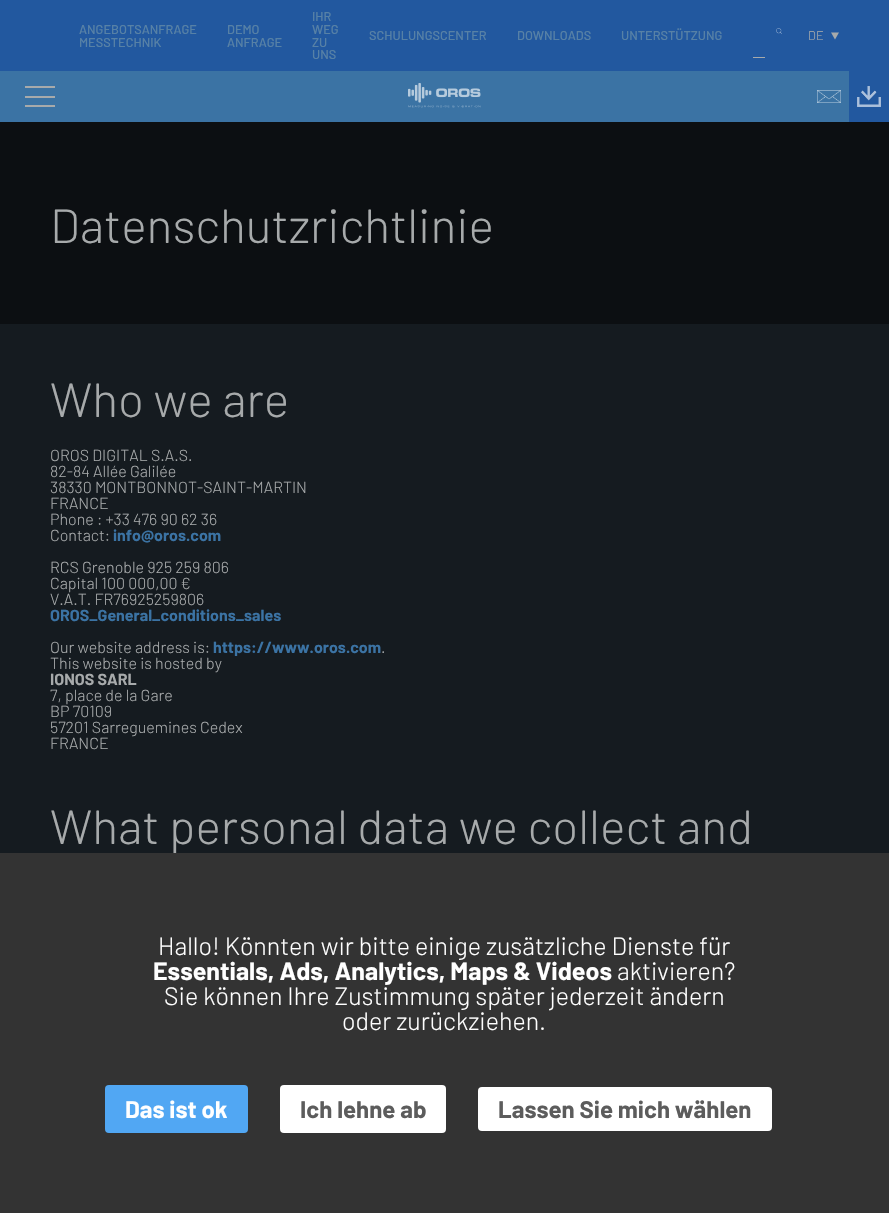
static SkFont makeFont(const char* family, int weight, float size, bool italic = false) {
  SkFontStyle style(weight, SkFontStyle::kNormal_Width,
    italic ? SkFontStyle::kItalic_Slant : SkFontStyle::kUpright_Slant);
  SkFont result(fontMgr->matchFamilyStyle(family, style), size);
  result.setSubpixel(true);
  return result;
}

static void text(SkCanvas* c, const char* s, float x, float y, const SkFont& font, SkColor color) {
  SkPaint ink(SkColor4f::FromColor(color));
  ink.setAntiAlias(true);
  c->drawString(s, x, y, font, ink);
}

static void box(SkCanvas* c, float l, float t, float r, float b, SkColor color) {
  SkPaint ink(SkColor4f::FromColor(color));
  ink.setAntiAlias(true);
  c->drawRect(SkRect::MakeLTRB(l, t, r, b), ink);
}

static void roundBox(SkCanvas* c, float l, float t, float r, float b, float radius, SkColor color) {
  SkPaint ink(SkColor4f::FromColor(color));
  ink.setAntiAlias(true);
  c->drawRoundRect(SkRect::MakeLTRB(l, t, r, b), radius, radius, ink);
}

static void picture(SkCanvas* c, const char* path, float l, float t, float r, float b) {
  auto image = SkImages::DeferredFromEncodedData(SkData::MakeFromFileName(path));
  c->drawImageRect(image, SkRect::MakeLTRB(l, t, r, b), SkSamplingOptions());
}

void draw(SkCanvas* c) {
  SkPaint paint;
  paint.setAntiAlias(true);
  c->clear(0xff151b20);
  box(c, 0, 0, 889, 71, 0xff22589f);
  SkFont face1 = makeFont("Barlow", 500, 12.75f);
  text(c, "ANGEBOTSANFRAGE", 79, 34, face1, 0xff5781a6);
  text(c, "MESSTECHNIK", 79, 47, face1, 0xff5781a6);
  text(c, "DEMO", 227, 34, face1, 0xff5781a6);
  text(c, "ANFRAGE", 227, 47, face1, 0xff5781a6);
  text(c, "IHR", 312, 21, face1, 0xff5781a6);
  text(c, "WEG", 312, 34, face1, 0xff5781a6);
  text(c, "ZU", 312, 47, face1, 0xff5781a6);
  text(c, "UNS", 312, 59, face1, 0xff5781a6);
  text(c, "SCHULUNGSCENTER", 369, 40, face1, 0xff5781a6);
  text(c, "DOWNLOADS", 517, 40, face1, 0xff5781a6);
  text(c, "UNTERSTÜTZUNG", 621, 40, face1, 0xff5781a6);
  picture(c, "img_01.png", 776, 28, 782, 34);
  box(c, 753, 57, 765, 58, 0xffa7aaab);
  SkFont face2 = makeFont("Barlow", 300, 12.75f);
  text(c, "DE", 808, 40, face2, 0xffa7aaab);
  paint.setColor(0xffa7aaab);
  c->drawPath(SkPathBuilder().moveTo(831, 32.5f).lineTo(839, 32.5f).lineTo(835, 39.5f).close().detach(), paint);
  box(c, 0, 71, 849, 122, 0xff3b73a4);
  box(c, 25, 86, 55, 88, 0xffa7aaab);
  box(c, 25, 96, 55, 98, 0xffa7aaab);
  box(c, 25, 105, 55, 107, 0xffa7aaab);
  picture(c, "img_02.png", 408, 83, 481, 108);
  picture(c, "img_03.png", 817, 90, 841, 103);
  box(c, 849, 71, 889, 122, 0xff22589f);
  picture(c, "img_04.png", 857, 86, 881, 107);
  box(c, 0, 122, 889, 324, 0xff0c0f12);
  SkFont face3 = makeFont("Barlow", 300, 48);
  text(c, "Datenschutzrichtlinie", 50, 243, face3, 0xffa7aaab);
  text(c, "Who we are", 50, 417, face3, 0xffa7aaab);
  SkFont face4 = makeFont("Barlow", 300, 16);
  text(c, "OROS DIGITAL S.A.S.", 50, 461, face4, 0xffa7aaab);
  text(c, "82-84 Allée Galilée", 50, 477, face4, 0xffa7aaab);
  text(c, "38330 MONTBONNOT-SAINT-MARTIN", 50, 493, face4, 0xffa7aaab);
  text(c, "FRANCE", 50, 509, face4, 0xffa7aaab);
  text(c, "Phone : +33 476 90 62 36", 50, 525, face4, 0xffa7aaab);
  text(c, "Contact:", 50, 541, face4, 0xffa7aaab);
  SkFont face5 = makeFont("Barlow", 700, 16);
  text(c, "info@oros.com", 113, 541, face5, 0xff3b73a4);
  text(c, "RCS Grenoble 925 259 806", 50, 573, face4, 0xffa7aaab);
  text(c, "Capital 100 000,00 €", 50, 589, face4, 0xffa7aaab);
  text(c, "V.A.T. FR76925259806", 50, 605, face4, 0xffa7aaab);
  text(c, "OROS_General_conditions_sales", 50, 621, face5, 0xff3b73a4);
  text(c, "Our website address is:", 50, 653, face4, 0xffa7aaab);
  text(c, "https://www.oros.com", 213, 653, face5, 0xff3b73a4);
  text(c, ".", 381, 653, face4, 0xffa7aaab);
  text(c, "This website is hosted by", 50, 669, face4, 0xffa7aaab);
  text(c, "IONOS SARL", 50, 685, face5, 0xffa7aaab);
  text(c, "7, place de la Gare", 50, 701, face4, 0xffa7aaab);
  text(c, "BP 70109", 50, 717, face4, 0xffa7aaab);
  text(c, "57201 Sarreguemines Cedex", 50, 733, face4, 0xffa7aaab);
  text(c, "FRANCE", 50, 749, face4, 0xffa7aaab);
  text(c, "What personal data we collect and", 50, 844, face3, 0xffa7aaab);
  box(c, 0, 853, 889, 1213, 0xff333333);
  SkFont face6 = makeFont("Barlow", 300, 25);
  text(c, "Hallo! Könnten wir bitte einige zusätzliche Dienste für", 158, 955, face6, 0xffffffff);
  SkFont face7 = makeFont("Barlow", 700, 25);
  text(c, "Essentials, Ads, Analytics, Maps & Videos", 153, 980, face7, 0xffffffff);
  text(c, "aktivieren?", 617, 980, face6, 0xffffffff);
  text(c, "Sie können Ihre Zustimmung später jederzeit ändern", 164, 1005, face6, 0xffffffff);
  text(c, "oder zurückziehen.", 342, 1030, face6, 0xffffffff);
  roundBox(c, 105, 1085, 248, 1133, 4, 0xff51a7f3);
  SkFont face8 = makeFont("Barlow", 700, 24);
  text(c, "Das ist ok", 125, 1118, face8, 0xffffffff);
  roundBox(c, 280, 1085, 446, 1133, 4, 0xffffffff);
  text(c, "Ich lehne ab", 300, 1118, face8, 0xff5c5c5c);
  roundBox(c, 478, 1087, 772, 1131, 4, 0xffffffff);
  text(c, "Lassen Sie mich wählen", 498, 1118, face8, 0xff5c5c5c);
}
